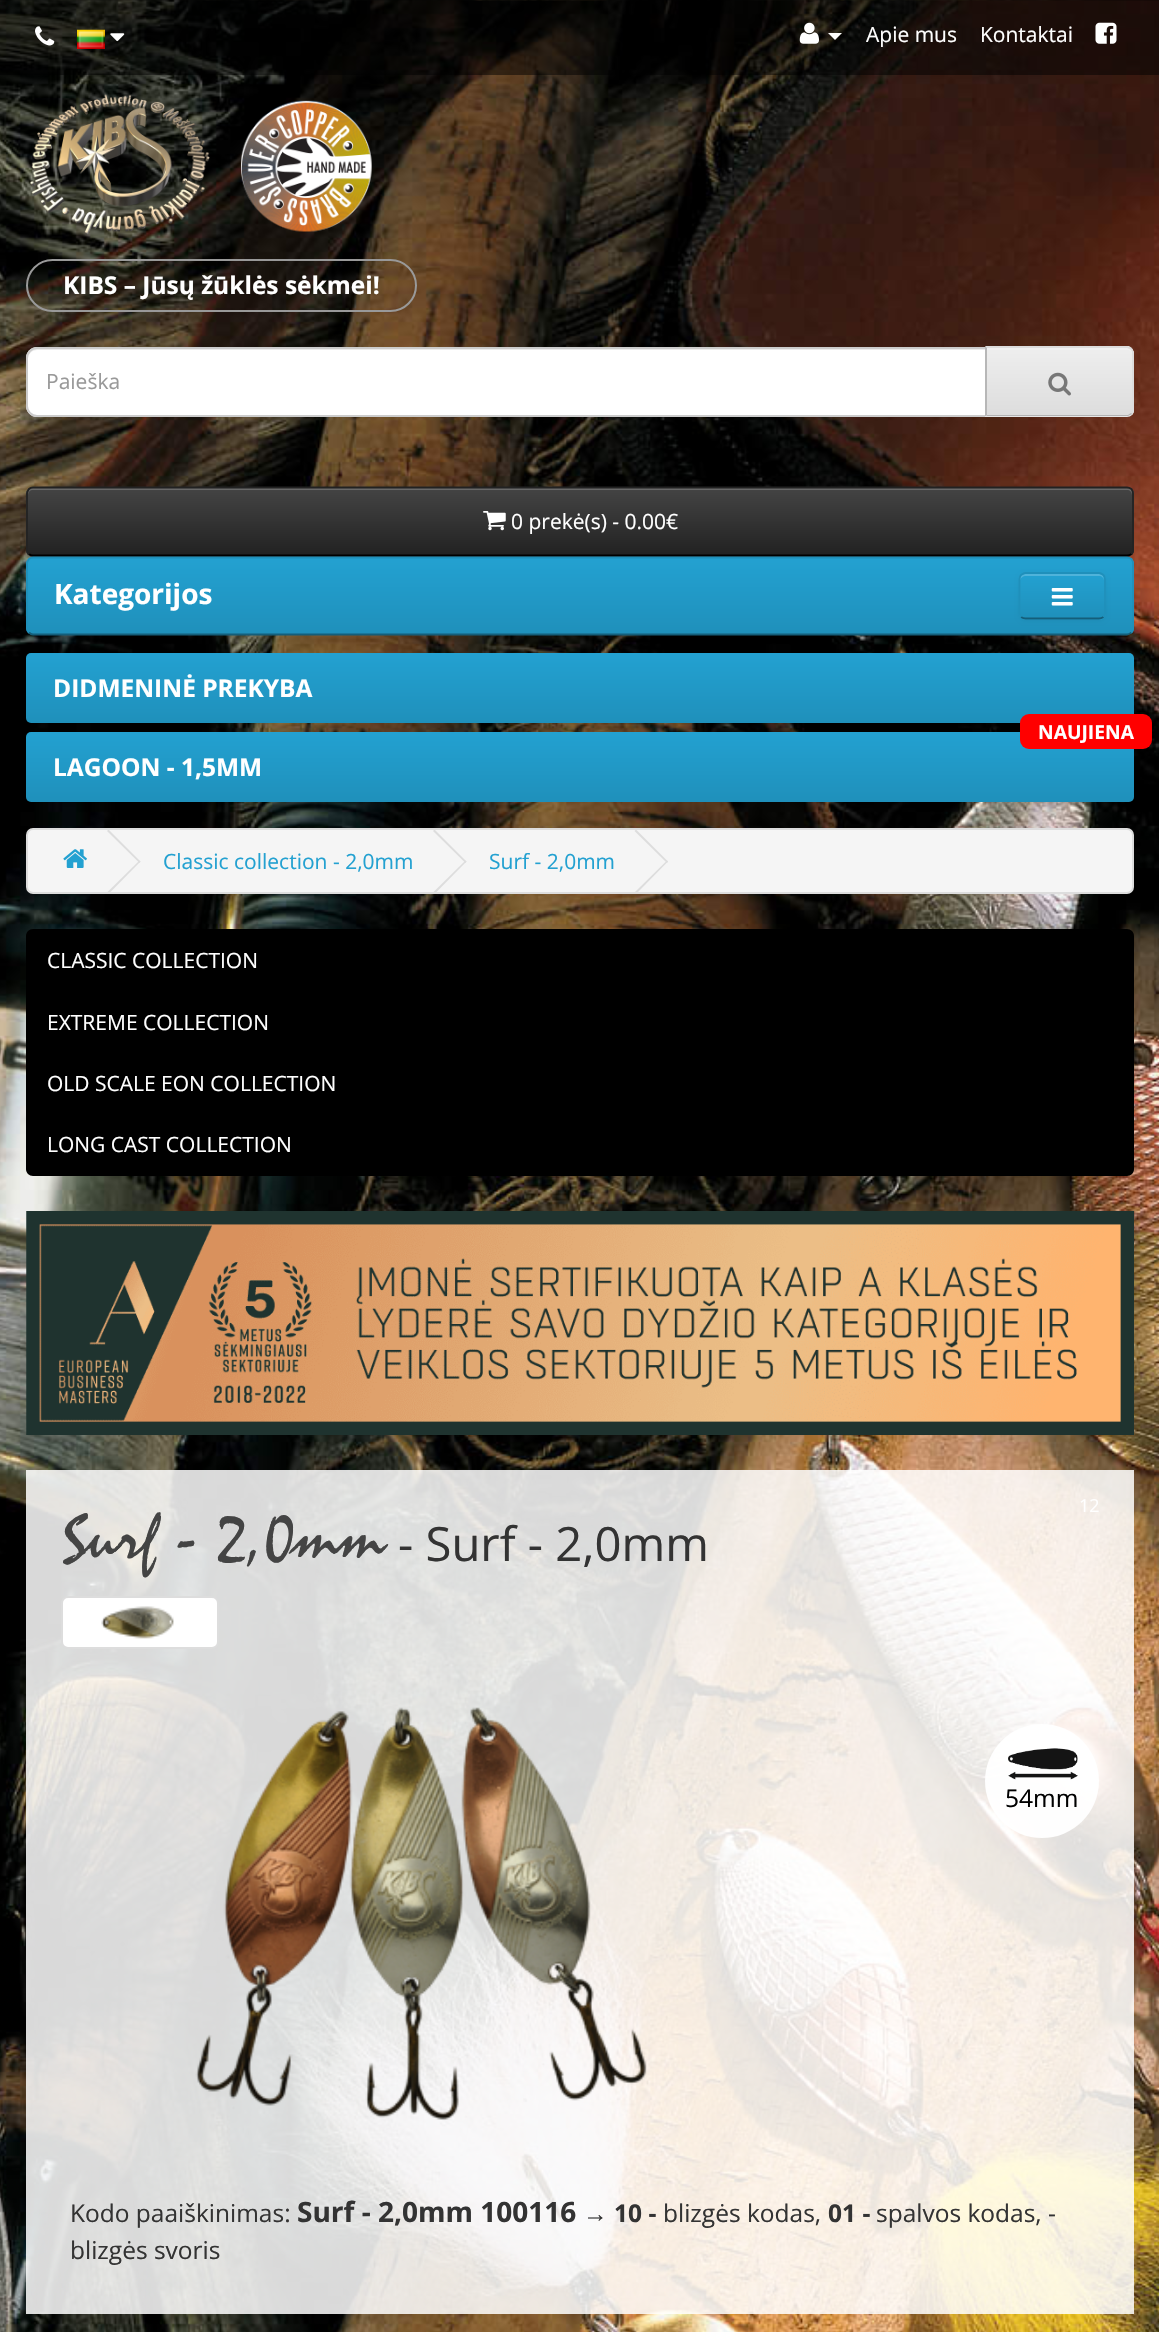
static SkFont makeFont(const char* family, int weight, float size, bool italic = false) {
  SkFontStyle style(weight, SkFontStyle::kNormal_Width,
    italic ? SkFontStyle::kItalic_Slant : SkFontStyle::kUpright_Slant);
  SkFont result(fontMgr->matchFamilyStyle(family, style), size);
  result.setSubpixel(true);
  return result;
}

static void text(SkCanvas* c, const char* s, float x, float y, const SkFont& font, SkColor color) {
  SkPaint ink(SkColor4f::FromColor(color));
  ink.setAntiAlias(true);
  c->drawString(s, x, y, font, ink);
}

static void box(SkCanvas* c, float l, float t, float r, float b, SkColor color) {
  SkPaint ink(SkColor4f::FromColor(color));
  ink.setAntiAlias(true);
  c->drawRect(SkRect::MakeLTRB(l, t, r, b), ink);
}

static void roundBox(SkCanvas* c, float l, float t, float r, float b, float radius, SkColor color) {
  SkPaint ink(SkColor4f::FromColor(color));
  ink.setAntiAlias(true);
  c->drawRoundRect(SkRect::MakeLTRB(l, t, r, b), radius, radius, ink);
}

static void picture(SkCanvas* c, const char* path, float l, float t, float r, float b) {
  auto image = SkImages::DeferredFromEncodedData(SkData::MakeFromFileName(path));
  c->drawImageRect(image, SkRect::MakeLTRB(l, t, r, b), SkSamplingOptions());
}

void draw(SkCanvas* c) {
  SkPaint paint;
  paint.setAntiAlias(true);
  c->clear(0xffffffff);
  picture(c, "img_01.png", 0, 0, 1159, 2332);
  box(c, 0, 0, 1159, 75, 0x80000000);
  picture(c, "img_02.png", 35, 26, 55, 46);
  picture(c, "img_03.png", 77, 29, 105, 49);
  picture(c, "img_04.png", 110, 33, 125, 42);
  picture(c, "img_05.png", 799, 22, 819, 44);
  paint.setColor(0xffffffff);
  c->drawPath(SkPathBuilder().moveTo(828, 33).lineTo(842, 33).lineTo(835, 40).close().detach(), paint);
  SkFont face1 = makeFont("Open Sans", 400, 21);
  text(c, "Apie mus", 866, 42, face1, 0xffffffff);
  text(c, "Kontaktai", 980, 42, face1, 0xffffffff);
  picture(c, "img_06.png", 1095, 22, 1117, 44);
  picture(c, "img_07.png", 30, 94, 210, 235);
  picture(c, "img_08.png", 241, 100, 372, 232);
  paint.setStyle(SkPaint::kStroke_Style);
  paint.setStrokeWidth(2);
  paint.setColor(0xff999999);
  c->drawRoundRect(SkRect::MakeLTRB(27, 260, 416, 311), 25.5f, 25.5f, paint);
  SkFont face2 = makeFont("Open Sans", 700, 24.5f);
  text(c, "KIBS – Jūsų žūklės sėkmei!", 63, 294, face2, 0xffffffff);
  paint.setStyle(SkPaint::kFill_Style);
  paint.setColor(0xffffffff);
  c->drawPath(SkPathBuilder().moveTo(37, 347).lineTo(987, 347).lineTo(987, 417).lineTo(37, 417).cubicTo(31, 417, 26, 412, 26, 406).lineTo(26, 358).cubicTo(26, 352, 31, 347, 37, 347).close().detach(), paint);
  paint.setColor(0xffececec);
  c->drawPath(SkPathBuilder().moveTo(37, 350).lineTo(985, 350).lineTo(985, 348).lineTo(37, 348).cubicTo(32, 348, 28, 352, 28, 357).lineTo(28, 359).cubicTo(28, 354, 32, 350, 37, 350).close().detach(), paint);
  paint.setStyle(SkPaint::kStroke_Style);
  paint.setColor(0xffcccccc);
  c->drawPath(SkPathBuilder().moveTo(37, 348).lineTo(986, 348).lineTo(986, 416).lineTo(37, 416).cubicTo(31.5f, 416, 27, 411.5f, 27, 406).lineTo(27, 358).cubicTo(27, 352.5f, 31.5f, 348, 37, 348).close().detach(), paint);
  text(c, "Paieška", 46, 389, face1, 0xff999999);
  paint.setStyle(SkPaint::kFill_Style);
  paint.setColor(0xffe7e7e7);
  c->drawPath(SkPathBuilder().moveTo(985, 347).lineTo(1127, 347).cubicTo(1131, 347, 1134, 350, 1134, 354).lineTo(1134, 410).cubicTo(1134, 414, 1131, 417, 1127, 417).lineTo(985, 417).close().detach(), paint);
  c->save();
  c->clipPath(SkPathBuilder().moveTo(985, 347).lineTo(1127, 347).cubicTo(1131, 347, 1134, 350, 1134, 354).lineTo(1134, 410).cubicTo(1134, 414, 1131, 417, 1127, 417).lineTo(985, 417).close().detach(), true);
  {
    const SkColor colors[] = {0xffeeeeee, 0xffdddddd};
    const float stops[] = {0, 1};
    const SkPoint ends[] = {{1060, 348}, {1060, 415}};
    paint.setShader(SkGradientShader::MakeLinear(ends, colors, stops, 2, SkTileMode::kClamp));
    paint.setAlpha(255);
  }
  c->drawRect(SkRect::MakeLTRB(987, 348, 1134, 415), paint);
  c->restore();
  paint.setShader(nullptr);
  paint.setColor(0xfff1f1f1);
  c->drawPath(SkPathBuilder().moveTo(987, 350).lineTo(1127, 350).cubicTo(1130, 350, 1132, 352, 1132, 355).lineTo(1132, 353).cubicTo(1132, 350, 1130, 348, 1127, 348).lineTo(987, 348).close().detach(), paint);
  paint.setColor(0xffdddddd);
  c->drawPath(SkPathBuilder().moveTo(987, 348).lineTo(985, 346).lineTo(1129, 346).lineTo(1132, 348).lineTo(1131, 350).cubicTo(1130, 349, 1128, 348, 1127, 348).close().detach(), paint);
  c->drawPath(SkPathBuilder().moveTo(1134, 410).lineTo(1134, 354).cubicTo(1134, 352, 1133, 350, 1132, 348).lineTo(1131, 350).cubicTo(1132, 351, 1132, 352, 1132, 354).lineTo(1132, 410).cubicTo(1132, 411, 1132, 412, 1131, 413).lineTo(1132, 414).cubicTo(1133, 413, 1134, 412, 1134, 410).close().detach(), paint);
  paint.setColor(0xffb3b3b3);
  c->drawPath(SkPathBuilder().moveTo(1132, 414).lineTo(1128, 416).lineTo(986, 416).lineTo(987, 415).lineTo(1128, 415).lineTo(1131, 413).close().detach(), paint);
  paint.setColor(0xffb7b7b7);
  c->drawPath(SkPathBuilder().moveTo(986, 416).lineTo(985, 416).lineTo(985, 346).lineTo(987, 348).lineTo(987, 415).close().detach(), paint);
  picture(c, "img_09.png", 1048, 372, 1071, 396);
  paint.setColor(0x0d000000);
  paint.setMaskFilter(SkMaskFilter::MakeBlur(kNormal_SkBlurStyle, 2));
  c->drawRoundRect(SkRect::MakeLTRB(26, 488, 1134, 558), 7, 7, paint);
  paint.setMaskFilter(nullptr);
  roundBox(c, 26, 487, 1134, 557, 7, 0xff363636);
  c->save();
  c->clipPath(SkPathBuilder().moveTo(33, 487).lineTo(1127, 487).cubicTo(1131, 487, 1134, 490, 1134, 494).lineTo(1134, 550).cubicTo(1134, 554, 1131, 557, 1127, 557).lineTo(33, 557).cubicTo(29, 557, 26, 554, 26, 550).lineTo(26, 494).cubicTo(26, 490, 29, 487, 33, 487).close().detach(), true);
  {
    const SkColor colors[] = {0xff444444, 0xff222222};
    const float stops[] = {0, 1};
    const SkPoint ends[] = {{580, 488}, {580, 555}};
    paint.setShader(SkGradientShader::MakeLinear(ends, colors, stops, 2, SkTileMode::kClamp));
    paint.setAlpha(255);
  }
  c->drawRect(SkRect::MakeLTRB(26, 488, 1134, 555), paint);
  c->restore();
  paint.setShader(nullptr);
  paint.setColor(0xff696969);
  c->drawPath(SkPathBuilder().moveTo(33, 490).lineTo(1127, 490).cubicTo(1130, 490, 1132, 492, 1132, 495).lineTo(1132, 493).cubicTo(1132, 490, 1130, 488, 1127, 488).lineTo(33, 488).cubicTo(30, 488, 28, 490, 28, 493).lineTo(28, 495).cubicTo(28, 492, 30, 490, 33, 490).close().detach(), paint);
  paint.setStyle(SkPaint::kStroke_Style);
  paint.setStrokeWidth(1.8f);
  paint.setColor(0xff000000);
  c->drawPath(SkPathBuilder().moveTo(1131.5f, 554).cubicTo(1130, 555, 1128.5f, 555.5f, 1127, 555.5f).lineTo(33, 555.5f).cubicTo(31.5f, 555.5f, 30, 555, 29, 554).detach(), paint);
  paint.setColor(0xff222222);
  c->drawPath(SkPathBuilder().moveTo(29, 554).cubicTo(28, 552.5f, 27, 551, 27, 549.5f).lineTo(27, 493.5f).cubicTo(27, 492, 28, 490.5f, 29, 489).cubicTo(30, 488, 31.5f, 487.5f, 33, 487.5f).lineTo(1127, 487.5f).cubicTo(1128.5f, 487.5f, 1130, 488, 1131.5f, 489).cubicTo(1132.5f, 490.5f, 1133, 492, 1133, 493.5f).lineTo(1133, 549.5f).cubicTo(1133, 551, 1132.5f, 552.5f, 1131.5f, 554).detach(), paint);
  picture(c, "img_10.png", 483, 511, 506, 531);
  text(c, "0 prekė(s) - 0.00€", 511, 529, face1, 0xffffffff);
  c->save();
  c->clipPath(SkPathBuilder().moveTo(33, 557).lineTo(1127, 557).cubicTo(1131, 557, 1134, 560, 1134, 564).lineTo(1134, 628).cubicTo(1134, 632, 1131, 635, 1127, 635).lineTo(33, 635).cubicTo(29, 635, 26, 632, 26, 628).lineTo(26, 564).cubicTo(26, 560, 29, 557, 33, 557).close().detach(), true);
  paint.setStyle(SkPaint::kFill_Style);
  {
    const SkColor colors[] = {0xff23a1d1, 0xff1f90bb};
    const float stops[] = {0, 1};
    const SkPoint ends[] = {{580, 558}, {580, 634}};
    paint.setShader(SkGradientShader::MakeLinear(ends, colors, stops, 2, SkTileMode::kClamp));
    paint.setAlpha(255);
  }
  c->drawRect(SkRect::MakeLTRB(26, 558, 1134, 634), paint);
  c->restore();
  paint.setStyle(SkPaint::kStroke_Style);
  paint.setShader(nullptr);
  paint.setColor(0xff145e7a);
  c->drawPath(SkPathBuilder().moveTo(1131.5f, 632.5f).cubicTo(1130, 633.5f, 1128.5f, 634.5f, 1127, 634.5f).lineTo(33, 634.5f).cubicTo(31.5f, 634.5f, 30, 633.5f, 29, 632.5f).detach(), paint);
  paint.setColor(0xff1f90bb);
  c->drawPath(SkPathBuilder().moveTo(29, 632.5f).cubicTo(28, 631.5f, 27, 630, 27, 628).lineTo(27, 563.5f).cubicTo(27, 562, 28, 560.5f, 29, 559).cubicTo(30, 558, 31.5f, 557.5f, 33, 557.5f).lineTo(1127, 557.5f).cubicTo(1128.5f, 557.5f, 1130, 558, 1131.5f, 559).cubicTo(1132.5f, 560.5f, 1133, 562, 1133, 563.5f).lineTo(1133, 628).cubicTo(1133, 630, 1132.5f, 631.5f, 1131.5f, 632.5f).detach(), paint);
  SkFont face3 = makeFont("Open Sans", 700, 28);
  text(c, "Kategorijos", 54, 604, face3, 0xffffffff);
  paint.setStyle(SkPaint::kFill_Style);
  paint.setColor(0x0d000000);
  paint.setMaskFilter(SkMaskFilter::MakeBlur(kNormal_SkBlurStyle, 2));
  c->drawRoundRect(SkRect::MakeLTRB(1019, 574, 1106, 621), 7, 7, paint);
  paint.setMaskFilter(nullptr);
  roundBox(c, 1019, 572, 1106, 620, 7, 0xff229ac8);
  c->save();
  c->clipPath(SkPathBuilder().moveTo(1026, 572).lineTo(1099, 572).cubicTo(1103, 572, 1106, 575, 1106, 579).lineTo(1106, 613).cubicTo(1106, 617, 1103, 620, 1099, 620).lineTo(1026, 620).cubicTo(1022, 620, 1019, 617, 1019, 613).lineTo(1019, 579).cubicTo(1019, 575, 1022, 572, 1026, 572).close().detach(), true);
  {
    const SkColor colors[] = {0xff23a1d1, 0xff1f90bb};
    const float stops[] = {0, 1};
    const SkPoint ends[] = {{1062, 574}, {1062, 618}};
    paint.setShader(SkGradientShader::MakeLinear(ends, colors, stops, 2, SkTileMode::kClamp));
    paint.setAlpha(255);
  }
  c->drawRect(SkRect::MakeLTRB(1019, 574, 1106, 618), paint);
  c->restore();
  paint.setShader(nullptr);
  paint.setColor(0xff4fb3da);
  c->drawPath(SkPathBuilder().moveTo(1026, 576).lineTo(1099, 576).cubicTo(1102, 576, 1104, 578, 1104, 581).cubicTo(1104, 571, 1095, 574, 1087, 574).lineTo(1037, 574).cubicTo(1029, 574, 1020, 571, 1020, 581).cubicTo(1020, 578, 1023, 576, 1026, 576).close().detach(), paint);
  paint.setStyle(SkPaint::kStroke_Style);
  paint.setColor(0xff145e7a);
  c->drawPath(SkPathBuilder().moveTo(1103.5f, 617).cubicTo(1102, 618, 1100.5f, 618.5f, 1099, 618.5f).lineTo(1025.5f, 618.5f).cubicTo(1024, 618.5f, 1022.5f, 618, 1021, 617).detach(), paint);
  paint.setColor(0xff1f90bb);
  c->drawPath(SkPathBuilder().moveTo(1021, 617).cubicTo(1020, 615.5f, 1019.5f, 614, 1019.5f, 612.5f).lineTo(1019.5f, 579).cubicTo(1019.5f, 577.5f, 1020, 576, 1021, 575).cubicTo(1022.5f, 574, 1024, 573, 1025.5f, 573).lineTo(1099, 573).cubicTo(1100.5f, 573, 1102, 574, 1103.5f, 575).cubicTo(1104.5f, 576, 1105, 577.5f, 1105, 579).lineTo(1105, 612.5f).cubicTo(1105, 614, 1104.5f, 615.5f, 1103.5f, 617).detach(), paint);
  picture(c, "img_11.png", 1051, 588, 1073, 606);
  paint.setStyle(SkPaint::kFill_Style);
  {
    const SkColor colors[] = {0xff23a1d1, 0xff1f90bb};
    const float stops[] = {0, 1};
    const SkPoint ends[] = {{580, 653}, {580, 723}};
    paint.setShader(SkGradientShader::MakeLinear(ends, colors, stops, 2, SkTileMode::kClamp));
    paint.setAlpha(255);
  }
  c->drawRoundRect(SkRect::MakeLTRB(26, 653, 1134, 723), 5, 5, paint);
  text(c, "DIDMENINĖ PREKYBA", 53, 697, face2, 0xffffffff);
  {
    const SkColor colors[] = {0xff23a1d1, 0xff1f90bb};
    const float stops[] = {0, 1};
    const SkPoint ends[] = {{580, 731}, {580, 802}};
    paint.setShader(SkGradientShader::MakeLinear(ends, colors, stops, 2, SkTileMode::kClamp));
    paint.setAlpha(255);
  }
  c->drawRoundRect(SkRect::MakeLTRB(26, 732, 1134, 802), 5, 5, paint);
  roundBox(c, 1020, 714, 1152, 749, 9, 0xffff0000);
  SkFont face4 = makeFont("Open Sans", 700, 19.25f);
  text(c, "NAUJIENA", 1038, 739, face4, 0xffffffff);
  text(c, "LAGOON - 1,5MM", 53, 776, face2, 0xffffffff);
  paint.setShader(nullptr);
  paint.setColor(0xfff5f5f5);
  c->drawRoundRect(SkRect::MakeLTRB(27, 829, 1133, 893), 6, 6, paint);
  paint.setStyle(SkPaint::kStroke_Style);
  paint.setStrokeWidth(2);
  paint.setColor(0xffdddddd);
  c->drawRoundRect(SkRect::MakeLTRB(27, 829, 1133, 893), 6, 6, paint);
  picture(c, "img_12.png", 63, 849, 87, 868);
  paint.setStyle(SkPaint::kFill_Style);
  c->drawPath(SkPathBuilder().moveTo(107, 831).lineTo(108.5f, 829.5f).lineTo(140.5f, 861.5f).lineTo(139.5f, 863).close().detach(), paint);
  c->drawPath(SkPathBuilder().moveTo(107, 892.5f).lineTo(139.5f, 860.5f).lineTo(140.5f, 861.5f).lineTo(108.5f, 894).close().detach(), paint);
  text(c, "Classic collection - 2,0mm", 163, 869, face1, 0xff23a1d1);
  c->drawPath(SkPathBuilder().moveTo(433, 831).lineTo(434.5f, 829.5f).lineTo(466.5f, 861.5f).lineTo(465.5f, 863).close().detach(), paint);
  c->drawPath(SkPathBuilder().moveTo(433, 892.5f).lineTo(465.5f, 860.5f).lineTo(466.5f, 861.5f).lineTo(434.5f, 894).close().detach(), paint);
  text(c, "Surf - 2,0mm", 489, 869, face1, 0xff23a1d1);
  c->drawPath(SkPathBuilder().moveTo(634.5f, 831).lineTo(636, 829.5f).lineTo(668, 861.5f).lineTo(667, 863).close().detach(), paint);
  c->drawPath(SkPathBuilder().moveTo(634.5f, 892.5f).lineTo(667, 860.5f).lineTo(668, 861.5f).lineTo(636, 894).close().detach(), paint);
  paint.setColor(0xff000000);
  c->drawPath(SkPathBuilder().moveTo(33, 929).lineTo(1127, 929).cubicTo(1131, 929, 1134, 932, 1134, 936).lineTo(1134, 992).lineTo(26, 992).lineTo(26, 936).cubicTo(26, 932, 29, 929, 33, 929).close().detach(), paint);
  text(c, "CLASSIC COLLECTION", 47, 968, face1, 0xffffffff);
  box(c, 26, 992, 1134, 1113, 0xff000000);
  text(c, "EXTREME COLLECTION", 47, 1030, face1, 0xffffffff);
  text(c, "OLD SCALE EON COLLECTION", 47, 1091, face1, 0xffffffff);
  c->drawPath(SkPathBuilder().moveTo(26, 1113).lineTo(1134, 1113).lineTo(1134, 1169).cubicTo(1134, 1173, 1131, 1176, 1127, 1176).lineTo(33, 1176).cubicTo(29, 1176, 26, 1173, 26, 1169).close().detach(), paint);
  text(c, "LONG CAST COLLECTION", 47, 1152, face1, 0xffffffff);
  picture(c, "img_13.png", 26, 1211, 1134, 1435);
  box(c, 26, 1470, 1134, 2314, 0xd9ffffff);
  SkFont face5 = makeFont("Open Sans", 400, 18);
  text(c, "12", 1079, 1512, face5, 0xffffffff);
  SkFont face6 = makeFont("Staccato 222", 400, 66.5f);
  text(c, "Surf - 2,0mm", 61, 1561, face6, 0xff444444);
  SkFont face7 = makeFont("Open Sans", 400, 47.25f);
  text(c, "- Surf - 2,0mm", 398, 1561, face7, 0xff333333);
  paint.setColor(0xf2ffffff);
  c->drawCircle(1042, 1781, 57, paint);
  picture(c, "img_14.png", 1008, 1748, 1078, 1780);
  SkFont face8 = makeFont("Open Sans", 400, 24.5f);
  text(c, "54mm", 1005, 1807, face8, 0xff000000);
  paint.setColor(0xffffffff);
  c->drawRoundRect(SkRect::MakeLTRB(62, 1597, 218, 1648), 6, 6, paint);
  paint.setStyle(SkPaint::kStroke_Style);
  paint.setColor(0xffdddddd);
  c->drawRoundRect(SkRect::MakeLTRB(62, 1597, 218, 1648), 6, 6, paint);
  picture(c, "img_15.png", 101, 1606, 174, 1639);
  picture(c, "img_16.png", 195, 1707, 647, 2120);
  text(c, "Kodo paaiškinimas:", 70, 2222, face8, 0xff333333);
  text(c, "Surf - 2,0mm 100116", 297, 2222, face3, 0xff333333);
  SkFont face9 = makeFont("Liberation Sans", 700, 24.5f);
  text(c, "→", 583, 2222, face9, 0xff333333);
  text(c, "10 -", 614, 2222, face2, 0xff333333);
  text(c, "blizgės kodas,", 663, 2222, face8, 0xff333333);
  text(c, "01 -", 828, 2222, face2, 0xff333333);
  text(c, "spalvos kodas, -", 876, 2222, face8, 0xff333333);
  text(c, "blizgės svoris", 70, 2259, face8, 0xff333333);
}
